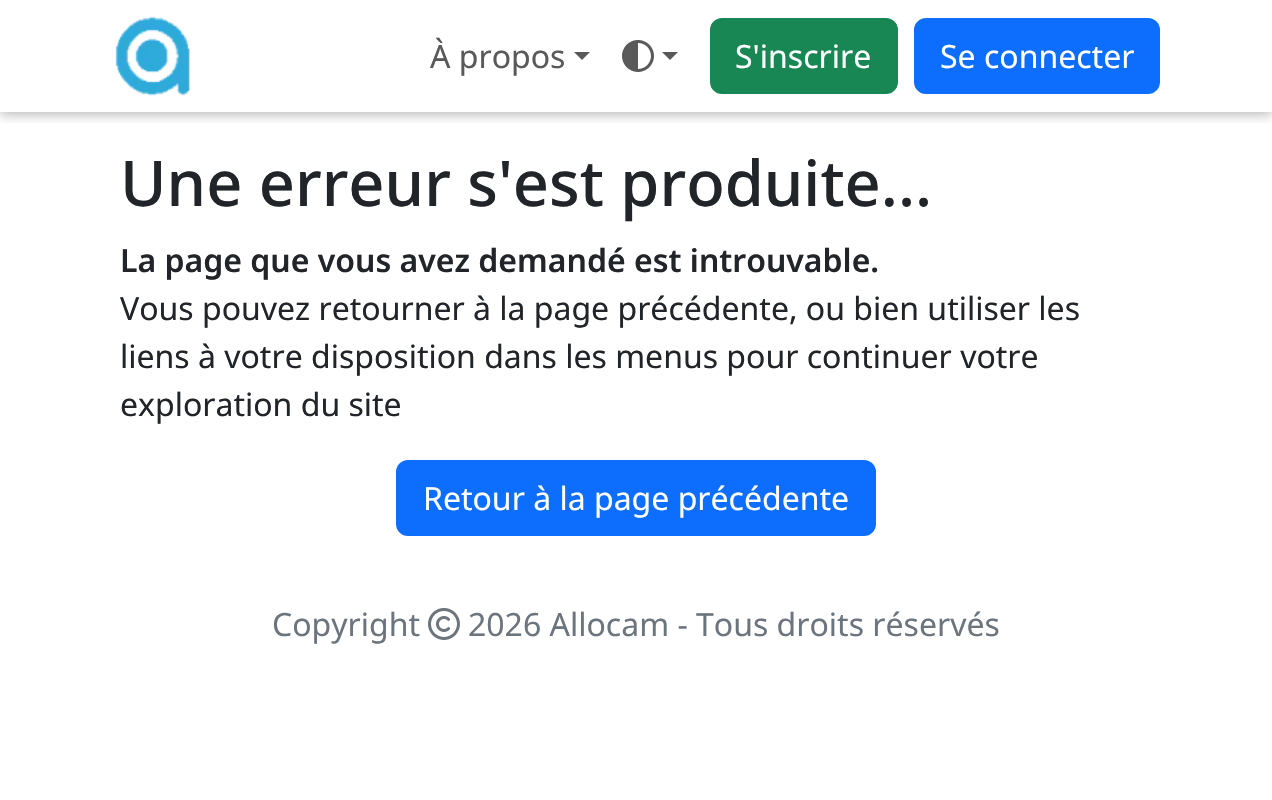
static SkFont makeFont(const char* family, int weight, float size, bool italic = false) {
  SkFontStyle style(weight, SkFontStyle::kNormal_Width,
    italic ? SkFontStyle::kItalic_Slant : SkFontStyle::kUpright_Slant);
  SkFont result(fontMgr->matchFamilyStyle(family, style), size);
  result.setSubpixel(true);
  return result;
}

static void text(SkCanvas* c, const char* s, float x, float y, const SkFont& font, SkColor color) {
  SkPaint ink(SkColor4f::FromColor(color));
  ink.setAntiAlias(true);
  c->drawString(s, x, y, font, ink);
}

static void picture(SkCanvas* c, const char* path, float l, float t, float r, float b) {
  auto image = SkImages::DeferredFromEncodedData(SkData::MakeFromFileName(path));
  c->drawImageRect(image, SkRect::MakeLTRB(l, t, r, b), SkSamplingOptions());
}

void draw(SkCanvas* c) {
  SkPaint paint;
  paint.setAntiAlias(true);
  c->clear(0xffffffff);
  c->save();
  c->clipRect(SkRect::MakeLTRB(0, 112, 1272, 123));
  paint.setColor(0x4d000000);
  paint.setMaskFilter(SkMaskFilter::MakeBlur(kNormal_SkBlurStyle, 6));
  c->drawRect(SkRect::MakeLTRB(0, 2, 1272, 114), paint);
  paint.setMaskFilter(nullptr);
  c->restore();
  picture(c, "img_01.png", 115, 16, 190, 96);
  SkFont face1 = makeFont("Noto Sans", 400, 32);
  text(c, "À propos", 430, 68, face1, 0xff595959);
  paint.setColor(0xff595959);
  c->drawPath(SkPathBuilder().moveTo(574, 52).lineTo(590, 52).lineTo(582, 60).close().detach(), paint);
  picture(c, "img_02.png", 622, 40, 654, 72);
  c->drawPath(SkPathBuilder().moveTo(662, 52).lineTo(678, 52).lineTo(670, 60).close().detach(), paint);
  paint.setColor(0xff198754);
  c->drawRoundRect(SkRect::MakeLTRB(711, 19, 897, 93), 11, 11, paint);
  paint.setStyle(SkPaint::kStroke_Style);
  paint.setStrokeWidth(2);
  c->drawRoundRect(SkRect::MakeLTRB(711, 19, 897, 93), 11, 11, paint);
  text(c, "S'inscrire", 735, 68, face1, 0xffffffff);
  paint.setStyle(SkPaint::kFill_Style);
  paint.setColor(0xff0d6efd);
  c->drawRoundRect(SkRect::MakeLTRB(915, 19, 1159, 93), 11, 11, paint);
  paint.setStyle(SkPaint::kStroke_Style);
  c->drawRoundRect(SkRect::MakeLTRB(915, 19, 1159, 93), 11, 11, paint);
  text(c, "Se connecter", 940, 68, face1, 0xffffffff);
  SkFont face2 = makeFont("Noto Sans", 500, 63.1f);
  text(c, "Une erreur s'est produite...", 120, 206, face2, 0xff212529);
  SkFont face3 = makeFont("Noto Sans", 600, 32);
  text(c, "La page que vous avez demandé est introuvable.", 120, 272, face3, 0xff212529);
  text(c, "Vous pouvez retourner à la page précédente, ou bien utiliser les", 120, 320, face1, 0xff212529);
  text(c, "liens à votre disposition dans les menus pour continuer votre", 120, 368, face1, 0xff212529);
  text(c, "exploration du site", 120, 416, face1, 0xff212529);
  paint.setStyle(SkPaint::kFill_Style);
  c->drawRoundRect(SkRect::MakeLTRB(397, 461, 875, 535), 11, 11, paint);
  paint.setStyle(SkPaint::kStroke_Style);
  c->drawRoundRect(SkRect::MakeLTRB(397, 461, 875, 535), 11, 11, paint);
  text(c, "Retour à la page précédente", 423, 510, face1, 0xffffffff);
  text(c, "Copyright", 272, 636, face1, 0xff6c757d);
  picture(c, "img_03.png", 428, 608, 460, 640);
  text(c, "2026 Allocam - Tous droits réservés", 468, 636, face1, 0xff6c757d);
}
